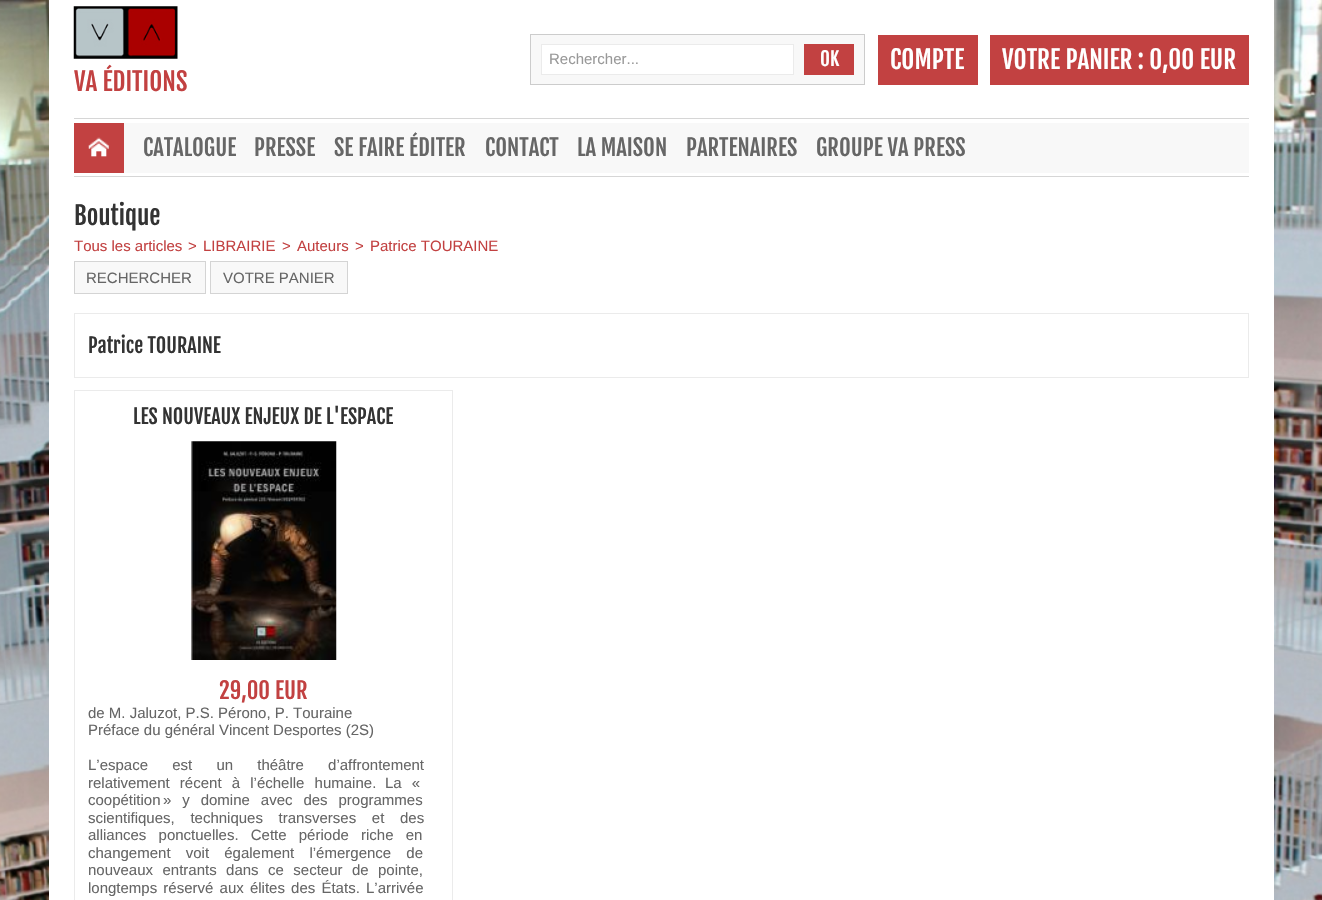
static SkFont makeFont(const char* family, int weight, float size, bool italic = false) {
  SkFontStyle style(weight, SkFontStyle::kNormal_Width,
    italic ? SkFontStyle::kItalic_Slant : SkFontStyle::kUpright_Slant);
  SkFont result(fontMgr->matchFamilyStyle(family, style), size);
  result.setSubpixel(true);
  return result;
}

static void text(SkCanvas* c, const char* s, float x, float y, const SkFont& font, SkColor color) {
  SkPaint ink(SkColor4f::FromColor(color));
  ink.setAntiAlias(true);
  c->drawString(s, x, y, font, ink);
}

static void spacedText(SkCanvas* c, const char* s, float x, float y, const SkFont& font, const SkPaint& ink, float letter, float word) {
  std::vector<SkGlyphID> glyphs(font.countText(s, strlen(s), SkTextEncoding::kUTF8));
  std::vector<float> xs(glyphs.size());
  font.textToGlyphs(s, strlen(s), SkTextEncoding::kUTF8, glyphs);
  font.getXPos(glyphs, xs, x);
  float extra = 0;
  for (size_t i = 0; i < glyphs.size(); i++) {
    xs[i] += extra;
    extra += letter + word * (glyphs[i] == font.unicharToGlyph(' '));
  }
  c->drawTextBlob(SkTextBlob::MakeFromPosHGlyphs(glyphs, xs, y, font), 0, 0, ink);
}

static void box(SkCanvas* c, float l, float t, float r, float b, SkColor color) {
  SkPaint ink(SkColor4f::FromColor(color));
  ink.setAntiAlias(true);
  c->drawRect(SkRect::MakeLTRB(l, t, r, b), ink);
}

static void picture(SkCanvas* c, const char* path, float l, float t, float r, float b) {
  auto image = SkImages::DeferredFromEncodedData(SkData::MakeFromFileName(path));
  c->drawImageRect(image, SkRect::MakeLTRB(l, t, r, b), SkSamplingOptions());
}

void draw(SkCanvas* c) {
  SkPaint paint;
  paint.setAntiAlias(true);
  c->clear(0xffffffff);
  picture(c, "img_01.png", 0, 0, 1322, 900);
  box(c, 49, 0, 1274, 900, 0xffffffff);
  picture(c, "img_02.png", 73, 6, 178, 59);
  paint.setColor(0xfff8f8f8);
  c->drawRect(SkRect::MakeLTRB(530.5f, 34.5f, 864.5f, 84.5f), paint);
  paint.setStyle(SkPaint::kStroke_Style);
  paint.setStrokeWidth(1);
  paint.setColor(0xffcccccc);
  c->drawRect(SkRect::MakeLTRB(530.5f, 34.5f, 864.5f, 84.5f), paint);
  paint.setStyle(SkPaint::kFill_Style);
  paint.setColor(0xffffffff);
  c->drawRect(SkRect::MakeLTRB(541.5f, 44.5f, 793.5f, 74.5f), paint);
  paint.setStyle(SkPaint::kStroke_Style);
  paint.setColor(0xffebebeb);
  c->drawRect(SkRect::MakeLTRB(541.5f, 44.5f, 793.5f, 74.5f), paint);
  SkFont face1 = makeFont("Liberation Sans", 400, 15);
  text(c, "Rechercher...", 549, 64, face1, 0xff999999);
  box(c, 804, 44, 854, 75, 0xffc24141);
  SkFont face2 = makeFont("Fjalla One", 400, 19);
  text(c, "OK", 820, 66, face2, 0xffffffff);
  box(c, 878, 35, 978, 85, 0xffc24141);
  SkFont face3 = makeFont("Fjalla One", 400, 25);
  text(c, "COMPTE", 890, 69, face3, 0xffffffff);
  box(c, 990, 35, 1249, 85, 0xffc24141);
  text(c, "VOTRE PANIER : 0,00 EUR", 1002, 69, face3, 0xffffffff);
  box(c, 74, 123, 124, 173, 0xffc24141);
  picture(c, "img_03.png", 88, 137, 109, 157);
  text(c, "VA ÉDITIONS", 74, 91, face3, 0xffc24141);
  box(c, 74, 118, 1249, 119, 0xffd6d6d6);
  box(c, 74, 176, 1249, 177, 0xffd6d6d6);
  box(c, 124, 123, 1249, 173, 0xfff8f8f8);
  SkFont face4 = makeFont("Fjalla One", 400, 22.5f);
  text(c, "CATALOGUE", 143, 156, face4, 0xff666666);
  text(c, "PRESSE", 254, 156, face4, 0xff666666);
  text(c, "SE FAIRE ÉDITER", 334, 156, face4, 0xff666666);
  text(c, "CONTACT", 485, 156, face4, 0xff666666);
  text(c, "LA MAISON", 577, 156, face4, 0xff666666);
  text(c, "PARTENAIRES", 686, 156, face4, 0xff666666);
  text(c, "GROUPE VA PRESS", 816, 156, face4, 0xff666666);
  text(c, "Boutique", 74, 225, face3, 0xff333333);
  text(c, "Tous les articles", 74, 251, face1, 0xffc24141);
  text(c, ">", 188, 251, face1, 0xffc24141);
  text(c, "LIBRAIRIE", 203, 251, face1, 0xffc24141);
  text(c, ">", 282, 251, face1, 0xffc24141);
  text(c, "Auteurs", 297, 251, face1, 0xffc24141);
  text(c, ">", 355, 251, face1, 0xffc24141);
  text(c, "Patrice TOURAINE", 370, 251, face1, 0xffc24141);
  paint.setStyle(SkPaint::kFill_Style);
  paint.setColor(0xfff8f8f8);
  c->drawRect(SkRect::MakeLTRB(74.5f, 261.5f, 205.5f, 293.5f), paint);
  paint.setStyle(SkPaint::kStroke_Style);
  paint.setColor(0xffd4d4d4);
  c->drawRect(SkRect::MakeLTRB(74.5f, 261.5f, 205.5f, 293.5f), paint);
  text(c, "RECHERCHER", 86, 283, face1, 0xff666666);
  paint.setStyle(SkPaint::kFill_Style);
  paint.setColor(0xfff8f8f8);
  c->drawRect(SkRect::MakeLTRB(210.5f, 261.5f, 347.5f, 293.5f), paint);
  paint.setStyle(SkPaint::kStroke_Style);
  paint.setColor(0xffd4d4d4);
  c->drawRect(SkRect::MakeLTRB(210.5f, 261.5f, 347.5f, 293.5f), paint);
  text(c, "VOTRE PANIER", 223, 283, face1, 0xff666666);
  paint.setColor(0xffebebeb);
  c->drawRect(SkRect::MakeLTRB(74.5f, 313.5f, 1248.5f, 377.5f), paint);
  SkFont face5 = makeFont("Fjalla One", 400, 20);
  text(c, "Patrice TOURAINE", 88, 353, face5, 0xff333333);
  c->drawRect(SkRect::MakeLTRB(74.5f, 390.5f, 452.5f, 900.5f), paint);
  text(c, "LES NOUVEAUX ENJEUX DE L'ESPACE", 133, 424, face5, 0xff333333);
  picture(c, "img_04.png", 191, 441, 337, 660);
  text(c, "29,00 EUR", 219, 699, face4, 0xffc24141);
  text(c, "de M. Jaluzot, P.S. Pérono, P. Touraine", 88, 718, face1, 0xff666666);
  text(c, "Préface du général Vincent Desportes (2S)", 88, 735, face1, 0xff666666);
  paint.setStyle(SkPaint::kFill_Style);
  paint.setColor(0xff666666);
  spacedText(c, "L’espace est un théâtre d’affrontement", 88, 770, face1, paint, 0, 20);
  spacedText(c, "relativement récent à l’échelle humaine.", 88, 788, face1, paint, 0, 6);
  spacedText(c, "La «", 385, 788, face1, paint, 0, 6);
  text(c, "coopétition", 88, 805, face1, 0xff666666);
  spacedText(c, "» y domine avec des programmes", 163, 805, face1, paint, 0, 6.75f);
  spacedText(c, "scientifiques, techniques transverses et des", 88, 823, face1, paint, 0, 11.5f);
  spacedText(c, "alliances ponctuelles. Cette période riche en", 88, 840, face1, paint, 0, 8);
  spacedText(c, "changement voit également l’émergence de", 88, 858, face1, paint, 0, 11);
  spacedText(c, "nouveaux entrants dans ce secteur de pointe,", 88, 875, face1, paint, 0, 5.25f);
  spacedText(c, "longtemps réservé aux élites des États. L’arrivée", 88, 893, face1, paint, 0, 2);
}
